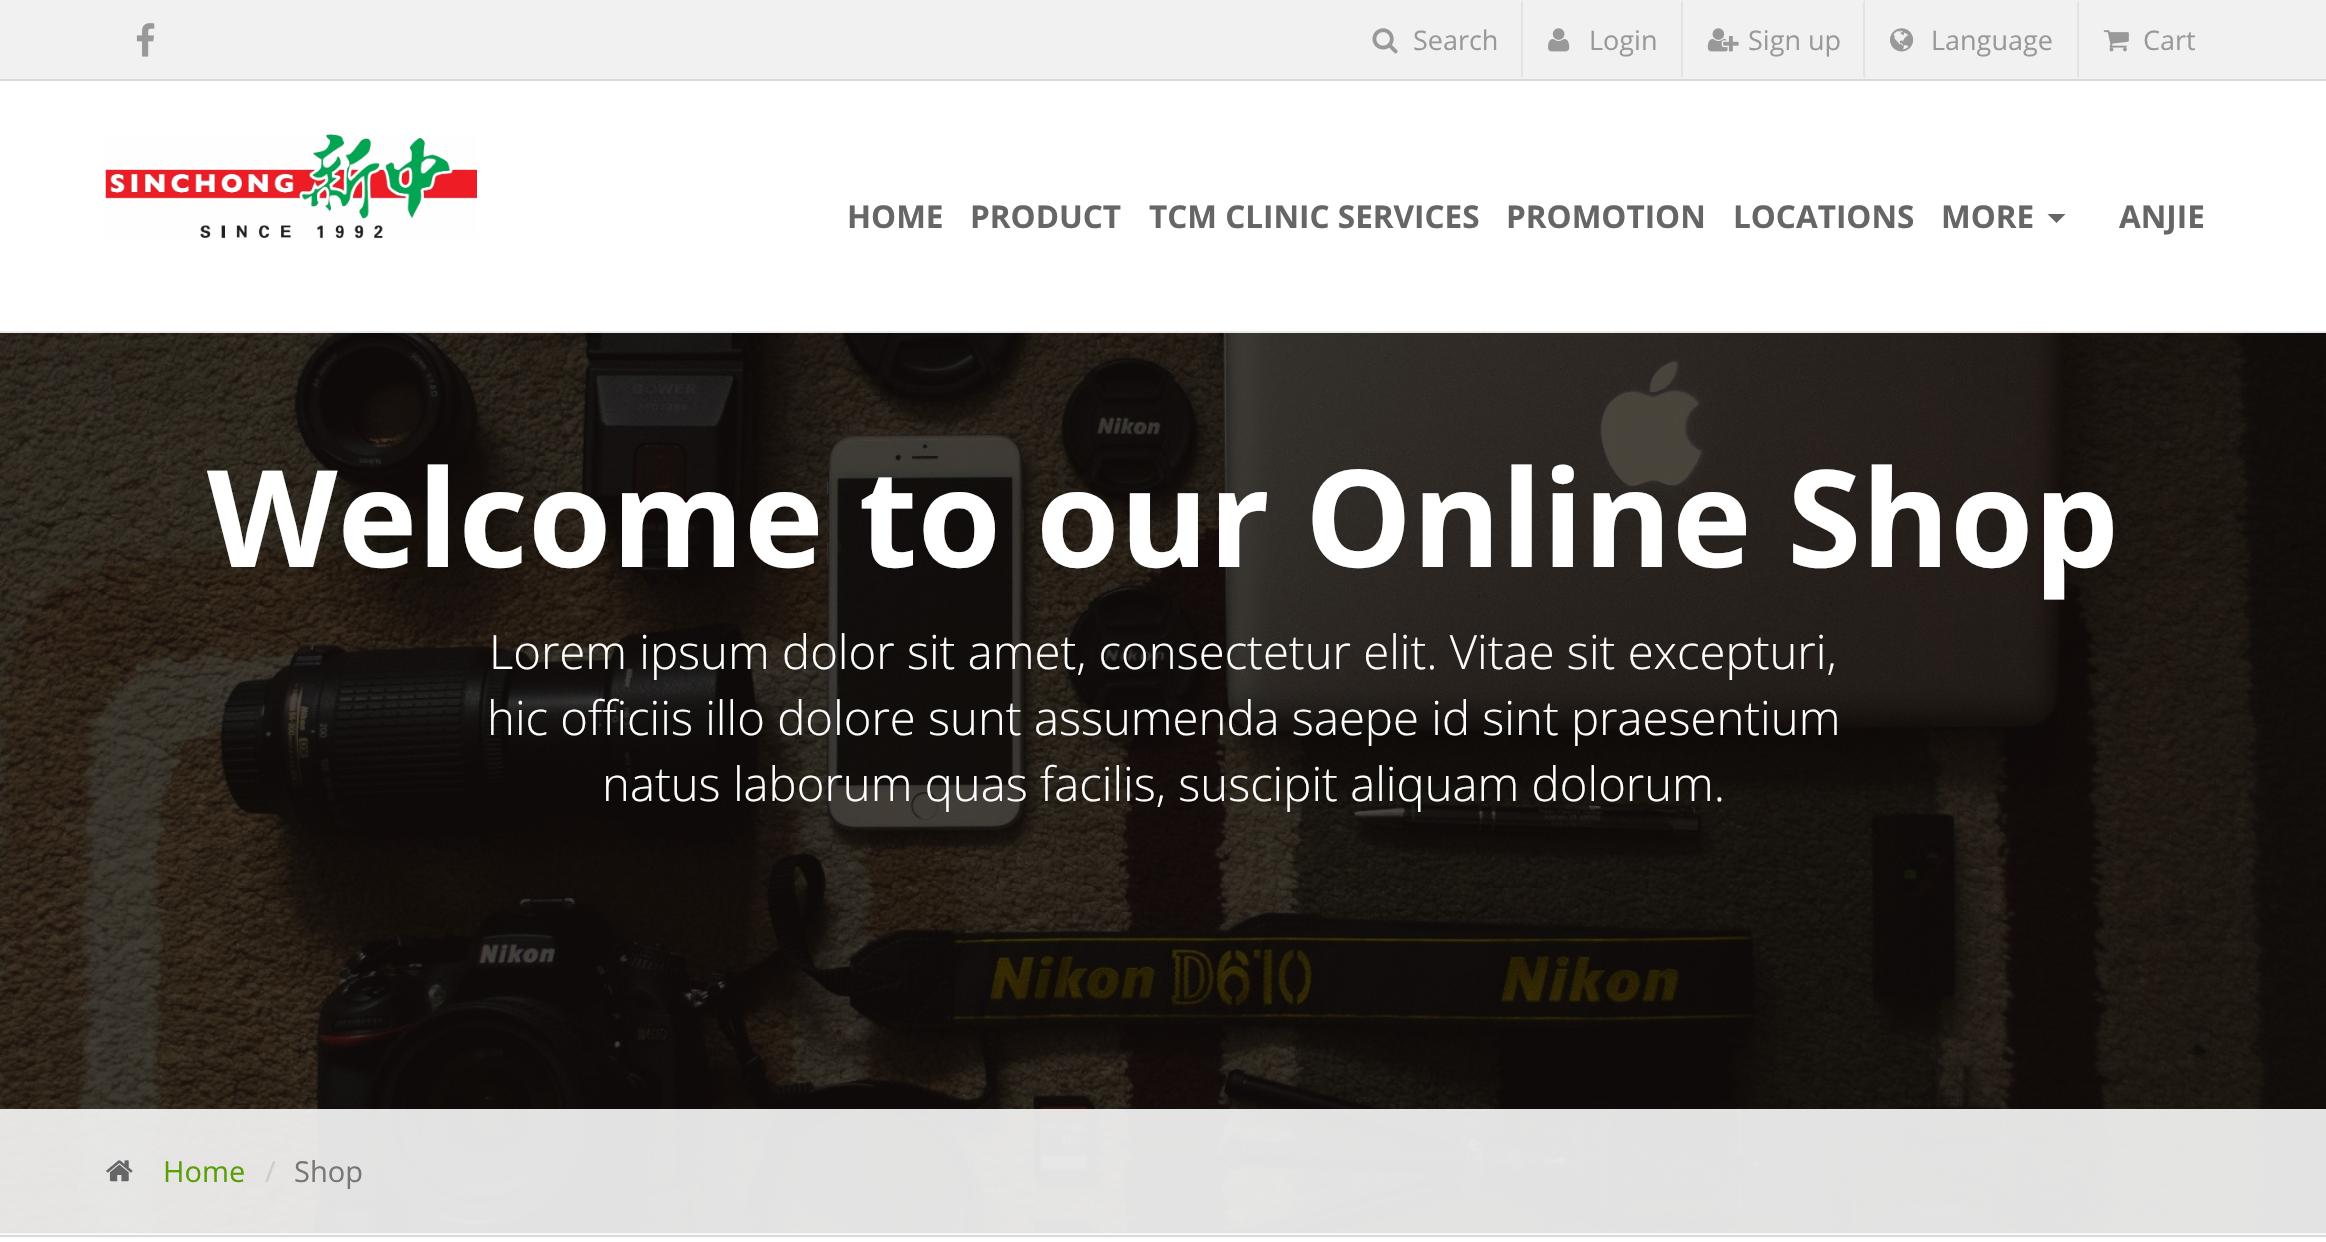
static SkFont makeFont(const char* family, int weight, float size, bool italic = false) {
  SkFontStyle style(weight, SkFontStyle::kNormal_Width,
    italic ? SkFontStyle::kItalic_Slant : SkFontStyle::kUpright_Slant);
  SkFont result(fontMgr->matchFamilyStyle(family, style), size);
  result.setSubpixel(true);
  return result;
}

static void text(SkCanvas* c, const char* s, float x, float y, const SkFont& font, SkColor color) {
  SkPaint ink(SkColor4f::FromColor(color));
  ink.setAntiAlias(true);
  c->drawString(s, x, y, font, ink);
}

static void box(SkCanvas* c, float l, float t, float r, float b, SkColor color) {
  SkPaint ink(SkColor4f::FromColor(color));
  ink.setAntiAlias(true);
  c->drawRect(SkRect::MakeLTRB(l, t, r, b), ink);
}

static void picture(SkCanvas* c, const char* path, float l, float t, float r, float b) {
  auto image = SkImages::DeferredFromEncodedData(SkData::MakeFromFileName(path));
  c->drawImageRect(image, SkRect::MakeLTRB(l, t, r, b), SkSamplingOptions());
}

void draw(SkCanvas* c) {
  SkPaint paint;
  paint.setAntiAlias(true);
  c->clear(0xffffffff);
  box(c, 0, 0, 2326, 79, 0xfff1f1f1);
  box(c, 0, 79, 2326, 81, 0xffdadada);
  picture(c, "img_01.png", 136, 23, 155, 57);
  paint.setColor(0xffe3e3e3);
  c->drawPath(SkPathBuilder().moveTo(1523, 0).lineTo(1523, 79).lineTo(1521, 76).lineTo(1521, 2).close().detach(), paint);
  picture(c, "img_02.png", 1372, 28, 1398, 54);
  SkFont face1 = makeFont("Open Sans", 400, 27);
  text(c, "Search", 1413, 50, face1, 0xff999999);
  c->drawPath(SkPathBuilder().moveTo(1683, 0).lineTo(1683, 79).lineTo(1681, 76).lineTo(1681, 2).close().detach(), paint);
  picture(c, "img_03.png", 1548, 28, 1570, 52);
  text(c, "Login", 1589, 50, face1, 0xff999999);
  c->drawPath(SkPathBuilder().moveTo(1865, 0).lineTo(1865, 79).lineTo(1863, 76).lineTo(1863, 2).close().detach(), paint);
  picture(c, "img_04.png", 1707, 28, 1739, 52);
  text(c, "Sign up", 1748, 50, face1, 0xff999999);
  c->drawPath(SkPathBuilder().moveTo(2079, 0).lineTo(2079, 79).lineTo(2077, 76).lineTo(2077, 2).close().detach(), paint);
  picture(c, "img_05.png", 1890, 28, 1914, 52);
  text(c, "Language", 1931, 50, face1, 0xff999999);
  picture(c, "img_06.png", 2103, 30, 2129, 52);
  text(c, "Cart", 2143, 50, face1, 0xff999999);
  box(c, 0, 331, 2326, 333, 0xffeaeaea);
  picture(c, "img_07.png", 105, 134, 477, 239);
  SkFont face2 = makeFont("Open Sans", 700, 31.5f);
  text(c, "HOME", 847, 228, face2, 0xff666666);
  text(c, "PRODUCT", 970, 228, face2, 0xff666666);
  text(c, "TCM CLINIC SERVICES", 1149, 228, face2, 0xff666666);
  text(c, "PROMOTION", 1506, 228, face2, 0xff666666);
  text(c, "LOCATIONS", 1733, 228, face2, 0xff666666);
  text(c, "MORE", 1941, 228, face2, 0xff666666);
  paint.setColor(0xff666666);
  c->drawPath(SkPathBuilder().moveTo(2047.5f, 214).lineTo(2065.5f, 214).lineTo(2056.5f, 223).close().detach(), paint);
  text(c, "ANJIE", 2119, 228, face2, 0xff666666);
  box(c, 0, 1233, 2326, 1235, 0xffeaeaea);
  picture(c, "img_08.png", 0, 333, 2326, 1233);
  SkFont face3 = makeFont("Open Sans", 700, 135);
  text(c, "Welcome to our Online Shop", 207, 567, face3, 0xffffffff);
  SkFont face4 = makeFont("Open Sans", 300, 47.25f);
  text(c, "Lorem ipsum dolor sit amet, consectetur elit. Vitae sit excepturi,", 489, 669, face4, 0xffffffff);
  text(c, "hic officiis illo dolore sunt assumenda saepe id sint praesentium", 487, 735, face4, 0xffffffff);
  text(c, "natus laborum quas facilis, suscipit aliquam dolorum.", 602, 801, face4, 0xffffffff);
  box(c, 0, 1109, 2326, 1238, 0xe6fafafa);
  box(c, 0, 1235, 2326, 1237, 0xffdadada);
  picture(c, "img_09.png", 106, 1160, 133, 1182);
  SkFont face5 = makeFont("Open Sans", 400, 29);
  text(c, "Home", 163, 1182, face5, 0xff599f06);
  text(c, "/", 265, 1182, face5, 0xffcccccc);
  text(c, "Shop", 294, 1182, face5, 0xff777777);
}
